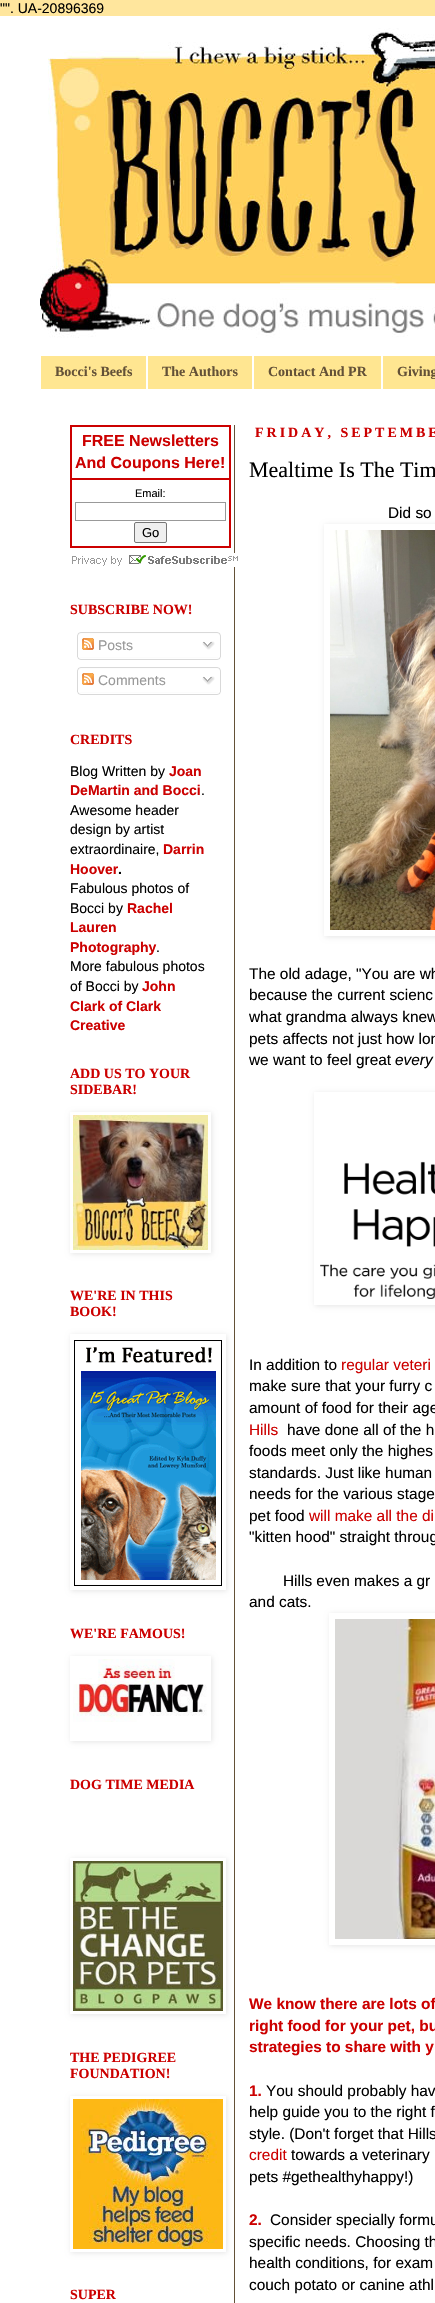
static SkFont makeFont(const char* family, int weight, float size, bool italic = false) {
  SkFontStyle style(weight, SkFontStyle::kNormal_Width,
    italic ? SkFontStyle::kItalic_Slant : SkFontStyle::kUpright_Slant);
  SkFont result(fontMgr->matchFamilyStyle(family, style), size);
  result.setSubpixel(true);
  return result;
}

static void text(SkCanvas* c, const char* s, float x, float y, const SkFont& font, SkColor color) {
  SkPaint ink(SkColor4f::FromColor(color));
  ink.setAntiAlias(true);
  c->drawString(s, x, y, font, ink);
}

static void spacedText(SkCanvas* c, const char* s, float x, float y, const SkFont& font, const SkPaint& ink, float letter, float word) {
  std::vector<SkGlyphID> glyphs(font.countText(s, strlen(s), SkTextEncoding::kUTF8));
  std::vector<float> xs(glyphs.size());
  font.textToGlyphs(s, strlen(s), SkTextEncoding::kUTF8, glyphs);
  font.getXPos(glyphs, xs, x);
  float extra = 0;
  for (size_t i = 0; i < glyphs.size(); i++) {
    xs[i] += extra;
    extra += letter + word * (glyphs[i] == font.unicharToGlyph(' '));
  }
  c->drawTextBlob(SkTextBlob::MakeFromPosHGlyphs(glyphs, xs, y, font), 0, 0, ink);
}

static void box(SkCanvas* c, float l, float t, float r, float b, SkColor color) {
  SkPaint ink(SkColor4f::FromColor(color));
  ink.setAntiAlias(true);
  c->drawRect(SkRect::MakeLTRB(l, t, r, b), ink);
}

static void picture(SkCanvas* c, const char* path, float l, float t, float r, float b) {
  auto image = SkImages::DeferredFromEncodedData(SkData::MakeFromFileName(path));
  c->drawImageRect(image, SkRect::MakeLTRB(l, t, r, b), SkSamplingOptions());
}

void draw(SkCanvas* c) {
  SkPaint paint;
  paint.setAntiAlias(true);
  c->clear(0xffffe69d);
  SkFont face1 = makeFont("Liberation Sans", 400, 14);
  text(c, "\"\". UA-20896369", 0, 13, face1, 0xff000000);
  box(c, 0, 16, 435, 2303, 0xffffffff);
  picture(c, "img_01.png", 40, 28, 435, 338);
  box(c, 41, 356, 435, 389, 0xffffe691);
  box(c, 146, 356, 148, 389, 0xffffffff);
  SkFont face2 = makeFont("Liberation Serif", 700, 14);
  text(c, "Bocci's Beefs", 55, 376, face2, 0xff635137);
  box(c, 252, 356, 254, 389, 0xffffffff);
  text(c, "The Authors", 162, 376, face2, 0xff635137);
  box(c, 381, 356, 383, 389, 0xffffffff);
  text(c, "Contact And PR", 268, 376, face2, 0xff635137);
  text(c, "Giving", 397, 376, face2, 0xff635137);
  box(c, 234, 425, 235, 2303, 0xff635137);
  paint.setStyle(SkPaint::kStroke_Style);
  paint.setStrokeWidth(2);
  paint.setColor(0xffcc0000);
  c->drawRect(SkRect::MakeLTRB(71, 426, 230, 547), paint);
  SkFont face3 = makeFont("Liberation Sans", 700, 16);
  text(c, "FREE Newsletters", 82, 446, face3, 0xffcc0000);
  text(c, "And Coupons Here!", 75, 468, face3, 0xffcc0000);
  box(c, 72, 478, 229, 480, 0xffcc0000);
  SkFont face4 = makeFont("Liberation Sans", 400, 11);
  text(c, "Email:", 135, 497, face4, 0xff000000);
  paint.setStrokeWidth(1);
  paint.setColor(0xff999999);
  c->drawRect(SkRect::MakeLTRB(75.5f, 502.5f, 225.5f, 520.5f), paint);
  paint.setStyle(SkPaint::kFill_Style);
  paint.setColor(0xffefefef);
  c->drawRoundRect(SkRect::MakeLTRB(134.5f, 522.5f, 166.5f, 542.5f), 1.5f, 1.5f, paint);
  paint.setStyle(SkPaint::kStroke_Style);
  paint.setColor(0xff767676);
  c->drawRoundRect(SkRect::MakeLTRB(134.5f, 522.5f, 166.5f, 542.5f), 1.5f, 1.5f, paint);
  SkFont face5 = makeFont("Liberation Sans", 400, 13);
  text(c, "Go", 142, 537, face5, 0xff000000);
  picture(c, "img_02.png", 72, 553, 238, 567);
  text(c, "SUBSCRIBE NOW!", 70, 614, face2, 0xffcc0000);
  picture(c, "img_03.png", 77, 632, 221, 657);
  picture(c, "img_04.png", 82, 638, 94, 650);
  text(c, "Posts", 98, 650, face1, 0xff999999);
  picture(c, "img_05.png", 202, 641, 215, 650);
  picture(c, "img_06.png", 77, 657, 221, 660);
  picture(c, "img_03.png", 77, 667, 221, 692);
  picture(c, "img_04.png", 82, 673, 94, 685);
  text(c, "Comments", 98, 685, face1, 0xff999999);
  picture(c, "img_05.png", 202, 676, 215, 685);
  picture(c, "img_06.png", 77, 692, 221, 695);
  text(c, "CREDITS", 70, 744, face2, 0xffcc0000);
  text(c, "Blog Written by", 70, 776, face1, 0xff000000);
  SkFont face6 = makeFont("Liberation Sans", 700, 14);
  text(c, "Joan", 169, 776, face6, 0xffcc0000);
  text(c, "DeMartin and Bocci", 70, 795, face6, 0xffcc0000);
  text(c, ".", 201, 795, face1, 0xff000000);
  text(c, "Awesome header", 70, 815, face1, 0xff000000);
  text(c, "design by artist", 70, 834, face1, 0xff000000);
  text(c, "extraordinaire,", 70, 854, face1, 0xff000000);
  text(c, "Darrin", 163, 854, face6, 0xffcc0000);
  text(c, "Hoover", 70, 874, face6, 0xffcc0000);
  text(c, ".", 118, 874, face6, 0xff000000);
  text(c, "Fabulous photos of", 70, 893, face1, 0xff000000);
  text(c, "Bocci by", 70, 913, face1, 0xff000000);
  text(c, "Rachel", 127, 913, face6, 0xffcc0000);
  text(c, "Lauren", 70, 932, face6, 0xffcc0000);
  text(c, "Photography", 70, 952, face6, 0xffcc0000);
  text(c, ".", 156, 952, face1, 0xff000000);
  text(c, "More fabulous photos", 70, 971, face1, 0xff000000);
  text(c, "of Bocci by", 70, 991, face1, 0xff000000);
  text(c, "John", 142, 991, face6, 0xffcc0000);
  text(c, "Clark of Clark", 70, 1011, face6, 0xffcc0000);
  text(c, "Creative", 70, 1030, face6, 0xffcc0000);
  text(c, "ADD US TO YOUR", 70, 1078, face2, 0xffcc0000);
  text(c, "SIDEBAR!", 70, 1094, face2, 0xffcc0000);
  c->save();
  c->clipPath(SkPathBuilder(SkPathFillType::kEvenOdd).moveTo(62, 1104).lineTo(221, 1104).lineTo(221, 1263).lineTo(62, 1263).close().moveTo(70, 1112).lineTo(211, 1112).lineTo(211, 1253).lineTo(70, 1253).close().detach(), true);
  paint.setStyle(SkPaint::kFill_Style);
  paint.setColor(0x1a000000);
  paint.setMaskFilter(SkMaskFilter::MakeBlur(kNormal_SkBlurStyle, 2.5f));
  c->drawRect(SkRect::MakeLTRB(71, 1113, 212, 1254), paint);
  paint.setMaskFilter(nullptr);
  c->restore();
  picture(c, "img_07.png", 73, 1115, 208, 1250);
  text(c, "WE'RE IN THIS", 70, 1300, face2, 0xffcc0000);
  text(c, "BOOK!", 70, 1316, face2, 0xffcc0000);
  c->save();
  c->clipPath(SkPathBuilder(SkPathFillType::kEvenOdd).moveTo(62, 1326).lineTo(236, 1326).lineTo(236, 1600).lineTo(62, 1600).close().moveTo(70, 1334).lineTo(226, 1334).lineTo(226, 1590).lineTo(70, 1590).close().detach(), true);
  paint.setMaskFilter(SkMaskFilter::MakeBlur(kNormal_SkBlurStyle, 2.5f));
  c->drawRect(SkRect::MakeLTRB(71, 1335, 227, 1591), paint);
  paint.setMaskFilter(nullptr);
  c->restore();
  picture(c, "img_08.png", 74, 1340, 222, 1586);
  text(c, "WE'RE FAMOUS!", 70, 1638, face2, 0xffcc0000);
  c->save();
  c->clipPath(SkPathBuilder(SkPathFillType::kEvenOdd).moveTo(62, 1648).lineTo(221, 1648).lineTo(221, 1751).lineTo(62, 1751).close().moveTo(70, 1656).lineTo(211, 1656).lineTo(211, 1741).lineTo(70, 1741).close().detach(), true);
  paint.setMaskFilter(SkMaskFilter::MakeBlur(kNormal_SkBlurStyle, 2.5f));
  c->drawRect(SkRect::MakeLTRB(71, 1657, 212, 1742), paint);
  paint.setMaskFilter(nullptr);
  c->restore();
  picture(c, "img_09.png", 73, 1659, 207, 1722);
  text(c, "DOG TIME MEDIA", 70, 1789, face2, 0xffcc0000);
  c->save();
  c->clipPath(SkPathBuilder(SkPathFillType::kEvenOdd).moveTo(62, 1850).lineTo(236, 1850).lineTo(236, 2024).lineTo(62, 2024).close().moveTo(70, 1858).lineTo(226, 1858).lineTo(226, 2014).lineTo(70, 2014).close().detach(), true);
  paint.setMaskFilter(SkMaskFilter::MakeBlur(kNormal_SkBlurStyle, 2.5f));
  c->drawRect(SkRect::MakeLTRB(71, 1859, 227, 2015), paint);
  paint.setMaskFilter(nullptr);
  c->restore();
  picture(c, "img_10.png", 73, 1861, 223, 2011);
  text(c, "THE PEDIGREE", 70, 2062, face2, 0xffcc0000);
  text(c, "FOUNDATION!", 70, 2078, face2, 0xffcc0000);
  c->save();
  c->clipPath(SkPathBuilder(SkPathFillType::kEvenOdd).moveTo(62, 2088).lineTo(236, 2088).lineTo(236, 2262).lineTo(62, 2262).close().moveTo(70, 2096).lineTo(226, 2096).lineTo(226, 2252).lineTo(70, 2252).close().detach(), true);
  paint.setMaskFilter(SkMaskFilter::MakeBlur(kNormal_SkBlurStyle, 2.5f));
  c->drawRect(SkRect::MakeLTRB(71, 2097, 227, 2253), paint);
  paint.setMaskFilter(nullptr);
  c->restore();
  picture(c, "img_11.png", 73, 2099, 223, 2249);
  text(c, "SUPER", 70, 2299, face2, 0xffcc0000);
  paint.setColor(0xffcc0000);
  spacedText(c, "FRIDAY, SEPTEMBE", 255, 437, face2, paint, 3, 0);
  SkFont face7 = makeFont("Liberation Serif", 400, 22);
  text(c, "Mealtime Is The Tim", 249, 477, face7, 0xff000000);
  SkFont face8 = makeFont("Liberation Sans", 400, 15.4f);
  text(c, "Did so", 388, 518, face8, 0xff000000);
  c->save();
  c->clipPath(SkPathBuilder(SkPathFillType::kEvenOdd).moveTo(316, 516).lineTo(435, 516).lineTo(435, 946).lineTo(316, 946).close().moveTo(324, 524).lineTo(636, 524).lineTo(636, 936).lineTo(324, 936).close().detach(), true);
  paint.setColor(0x1a000000);
  paint.setMaskFilter(SkMaskFilter::MakeBlur(kNormal_SkBlurStyle, 2.5f));
  c->drawRect(SkRect::MakeLTRB(325, 525, 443, 937), paint);
  paint.setMaskFilter(nullptr);
  c->restore();
  picture(c, "img_12.png", 330, 530, 435, 930);
  text(c, "The old adage, \"You are wh", 249, 979, face8, 0xff000000);
  text(c, "because the current scienc", 249, 1000, face8, 0xff000000);
  text(c, "what grandma always knew", 249, 1022, face8, 0xff000000);
  text(c, "pets affects not just how lon", 249, 1044, face8, 0xff000000);
  text(c, "we want to feel great", 249, 1065, face8, 0xff000000);
  SkFont face9 = makeFont("Liberation Sans", 400, 15.4f, true);
  text(c, "every", 395, 1065, face9, 0xff000000);
  c->save();
  c->clipPath(SkPathBuilder(SkPathFillType::kEvenOdd).moveTo(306, 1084).lineTo(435, 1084).lineTo(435, 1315).lineTo(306, 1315).close().moveTo(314, 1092).lineTo(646, 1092).lineTo(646, 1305).lineTo(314, 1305).close().detach(), true);
  paint.setMaskFilter(SkMaskFilter::MakeBlur(kNormal_SkBlurStyle, 2.5f));
  c->drawRect(SkRect::MakeLTRB(315, 1093, 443, 1306), paint);
  paint.setMaskFilter(nullptr);
  c->restore();
  picture(c, "img_13.png", 320, 1161, 435, 1299);
  text(c, "In addition to", 249, 1370, face8, 0xff000000);
  text(c, "regular veteri", 341, 1370, face8, 0xffcc0000);
  text(c, "make sure that your furry c", 249, 1391, face8, 0xff000000);
  text(c, "amount of food for their age", 249, 1413, face8, 0xff000000);
  text(c, "Hills", 249, 1435, face8, 0xffcc0000);
  text(c, "have done all of the h", 287, 1435, face8, 0xff000000);
  text(c, "foods meet only the highes", 249, 1456, face8, 0xff000000);
  text(c, "standards. Just like human", 249, 1478, face8, 0xff000000);
  text(c, "needs for the various stage", 249, 1499, face8, 0xff000000);
  text(c, "pet food", 249, 1521, face8, 0xff000000);
  text(c, "will make all the di", 309, 1521, face8, 0xffcc0000);
  text(c, "\"kitten hood\" straight throug", 249, 1542, face8, 0xff000000);
  text(c, "Hills even makes a gr", 283, 1586, face8, 0xff000000);
  text(c, "and cats.", 249, 1607, face8, 0xff000000);
  c->save();
  c->clipPath(SkPathBuilder(SkPathFillType::kEvenOdd).moveTo(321, 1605).lineTo(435, 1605).lineTo(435, 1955).lineTo(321, 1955).close().moveTo(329, 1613).lineTo(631, 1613).lineTo(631, 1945).lineTo(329, 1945).close().detach(), true);
  paint.setMaskFilter(SkMaskFilter::MakeBlur(kNormal_SkBlurStyle, 2.5f));
  c->drawRect(SkRect::MakeLTRB(330, 1614, 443, 1946), paint);
  paint.setMaskFilter(nullptr);
  c->restore();
  picture(c, "img_14.png", 335, 1619, 435, 1939);
  SkFont face10 = makeFont("Liberation Sans", 700, 15.4f);
  text(c, "We know there are lots of", 249, 2009, face10, 0xffcc0000);
  text(c, "right food for your pet, bu", 249, 2031, face10, 0xffcc0000);
  text(c, "strategies to share with y", 249, 2052, face10, 0xffcc0000);
  text(c, "1.", 249, 2096, face10, 0xffcc0000);
  text(c, "You should probably hav", 266, 2096, face8, 0xff000000);
  text(c, "help guide you to the right f", 249, 2117, face8, 0xff000000);
  text(c, "style. (Don't forget that Hills", 249, 2139, face8, 0xff000000);
  text(c, "credit", 249, 2160, face8, 0xffcc0000);
  text(c, "towards a veterinary", 291, 2160, face8, 0xff000000);
  text(c, "pets #gethealthyhappy!)", 249, 2182, face8, 0xff000000);
  text(c, "2.", 249, 2225, face10, 0xffcc0000);
  text(c, "Consider specially formu", 270, 2225, face8, 0xff000000);
  text(c, "specific needs. Choosing th", 249, 2247, face8, 0xff000000);
  text(c, "health conditions, for exam", 249, 2268, face8, 0xff000000);
  text(c, "couch potato or canine athl", 249, 2290, face8, 0xff000000);
}
